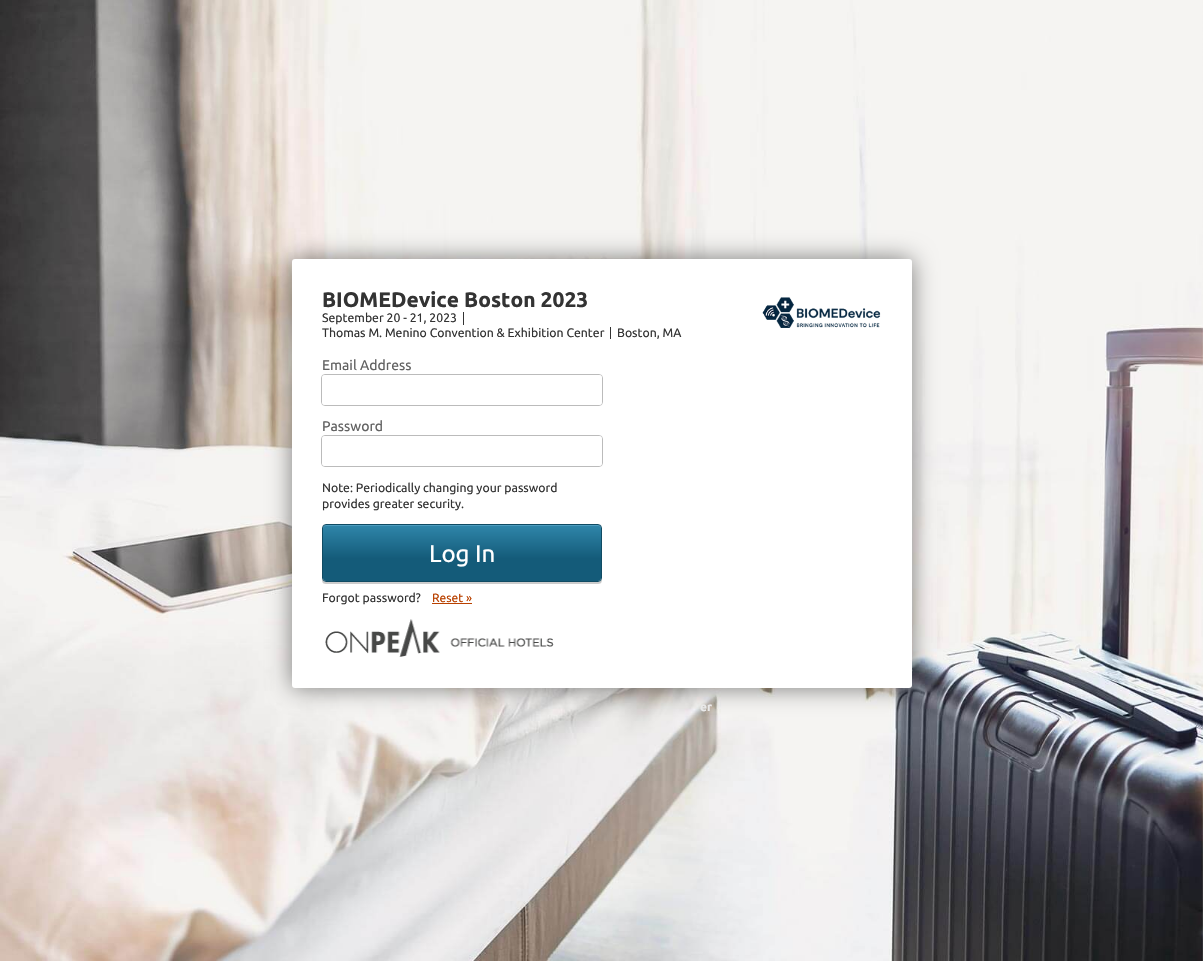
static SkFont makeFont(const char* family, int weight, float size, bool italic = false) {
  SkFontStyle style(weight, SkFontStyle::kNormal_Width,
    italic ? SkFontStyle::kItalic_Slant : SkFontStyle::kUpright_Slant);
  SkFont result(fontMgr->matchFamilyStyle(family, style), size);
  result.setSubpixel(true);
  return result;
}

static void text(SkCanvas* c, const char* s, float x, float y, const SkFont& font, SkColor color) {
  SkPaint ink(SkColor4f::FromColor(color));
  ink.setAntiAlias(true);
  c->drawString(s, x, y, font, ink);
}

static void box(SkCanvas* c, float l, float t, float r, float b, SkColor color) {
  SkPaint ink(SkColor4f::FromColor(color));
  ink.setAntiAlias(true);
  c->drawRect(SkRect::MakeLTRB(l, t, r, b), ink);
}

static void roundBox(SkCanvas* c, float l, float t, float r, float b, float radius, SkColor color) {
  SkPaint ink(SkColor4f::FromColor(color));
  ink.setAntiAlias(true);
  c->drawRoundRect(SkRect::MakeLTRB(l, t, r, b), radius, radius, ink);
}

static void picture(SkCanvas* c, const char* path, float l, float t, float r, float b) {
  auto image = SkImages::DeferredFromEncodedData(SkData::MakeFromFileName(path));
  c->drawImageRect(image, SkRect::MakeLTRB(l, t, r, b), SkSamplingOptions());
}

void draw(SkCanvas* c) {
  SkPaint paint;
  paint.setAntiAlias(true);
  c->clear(0xffffffff);
  picture(c, "img_01.png", 1202, 0, 1203, 961);
  picture(c, "img_02.png", 0, 0, 1203, 961);
  paint.setColor(0x80000000);
  paint.setMaskFilter(SkMaskFilter::MakeBlur(kNormal_SkBlurStyle, 12));
  c->drawRoundRect(SkRect::MakeLTRB(292, 259, 912, 688), 3, 3, paint);
  paint.setMaskFilter(nullptr);
  roundBox(c, 292, 259, 912, 688, 3, 0xffffffff);
  SkFont face1 = makeFont("Ubuntu", 700, 21);
  text(c, "BIOMEDevice Boston 2023", 322, 307, face1, 0xff333333);
  box(c, 463, 312, 464, 325, 0xff333333);
  SkFont face2 = makeFont("Ubuntu", 400, 12.25f);
  text(c, "September 20 - 21, 2023", 322, 322, face2, 0xff333333);
  box(c, 610, 327, 611, 339, 0xff333333);
  text(c, "Thomas M. Menino Convention & Exhibition Center", 322, 337, face2, 0xff333333);
  text(c, "Boston, MA", 617, 337, face2, 0xff333333);
  picture(c, "img_03.png", 762, 297, 881, 328);
  SkFont face3 = makeFont("Ubuntu", 400, 14);
  text(c, "Email Address", 322, 370, face3, 0xff626262);
  paint.setStyle(SkPaint::kStroke_Style);
  paint.setStrokeWidth(1);
  paint.setColor(0xffbbbbbb);
  c->drawRoundRect(SkRect::MakeLTRB(321.5f, 374.5f, 602.5f, 405.5f), 3.5f, 3.5f, paint);
  roundBox(c, 322, 375, 602, 405, 3, 0xffffffff);
  text(c, "Password", 322, 431, face3, 0xff626262);
  c->drawRoundRect(SkRect::MakeLTRB(321.5f, 435.5f, 602.5f, 466.5f), 3.5f, 3.5f, paint);
  roundBox(c, 322, 436, 602, 466, 3, 0xffffffff);
  text(c, "Note: Periodically changing your password", 322, 492, face2, 0xff333333);
  text(c, "provides greater security.", 322, 508, face2, 0xff333333);
  paint.setStyle(SkPaint::kFill_Style);
  paint.setColor(0xffcccccc);
  c->drawPath(SkPathBuilder().moveTo(322, 578).cubicTo(322, 581, 322, 584, 326, 584).lineTo(598, 584).cubicTo(602, 584, 602, 581, 602, 578).cubicTo(602, 580, 600, 582, 598, 582).lineTo(326, 582).cubicTo(324, 582, 322, 580, 322, 578).close().detach(), paint);
  {
    const SkColor colors[] = {0xff145b79, 0xff145b79, 0xff2f86aa};
    const float stops[] = {0, 0.4f, 1};
    const SkPoint ends[] = {{462, 581}, {462, 525}};
    paint.setShader(SkGradientShader::MakeLinear(ends, colors, stops, 3, SkTileMode::kClamp));
    paint.setAlpha(255);
  }
  c->drawRoundRect(SkRect::MakeLTRB(323, 525, 601, 581), 3, 3, paint);
  paint.setShader(nullptr);
  paint.setColor(0xff4e9dbf);
  c->drawPath(SkPathBuilder().moveTo(326, 526).lineTo(598, 526).cubicTo(600, 526, 601, 527, 601, 529).lineTo(601, 528).cubicTo(601, 526, 600, 525, 598, 525).lineTo(326, 525).cubicTo(324, 525, 323, 526, 323, 528).lineTo(323, 529).cubicTo(323, 527, 324, 526, 326, 526).close().detach(), paint);
  paint.setStyle(SkPaint::kStroke_Style);
  paint.setColor(0xff104b63);
  c->drawRoundRect(SkRect::MakeLTRB(322.5f, 524.5f, 601.5f, 581.5f), 3.5f, 3.5f, paint);
  SkFont face4 = makeFont("Ubuntu", 400, 24);
  text(c, "Log In", 429, 562, face4, 0xffffffff);
  text(c, "Forgot password?", 322, 602, face2, 0xff333333);
  SkFont face5 = makeFont("Ubuntu", 400, 12);
  text(c, "Reset »", 432, 602, face5, 0xffb94100);
  box(c, 432, 603, 472, 604, 0xffb94100);
  picture(c, "img_04.png", 325, 619, 554, 657);
  SkFont face6 = makeFont("Ubuntu", 700, 12);
  text(c, "er", 700, 711, face6, 0xffe9e9e9);
}
